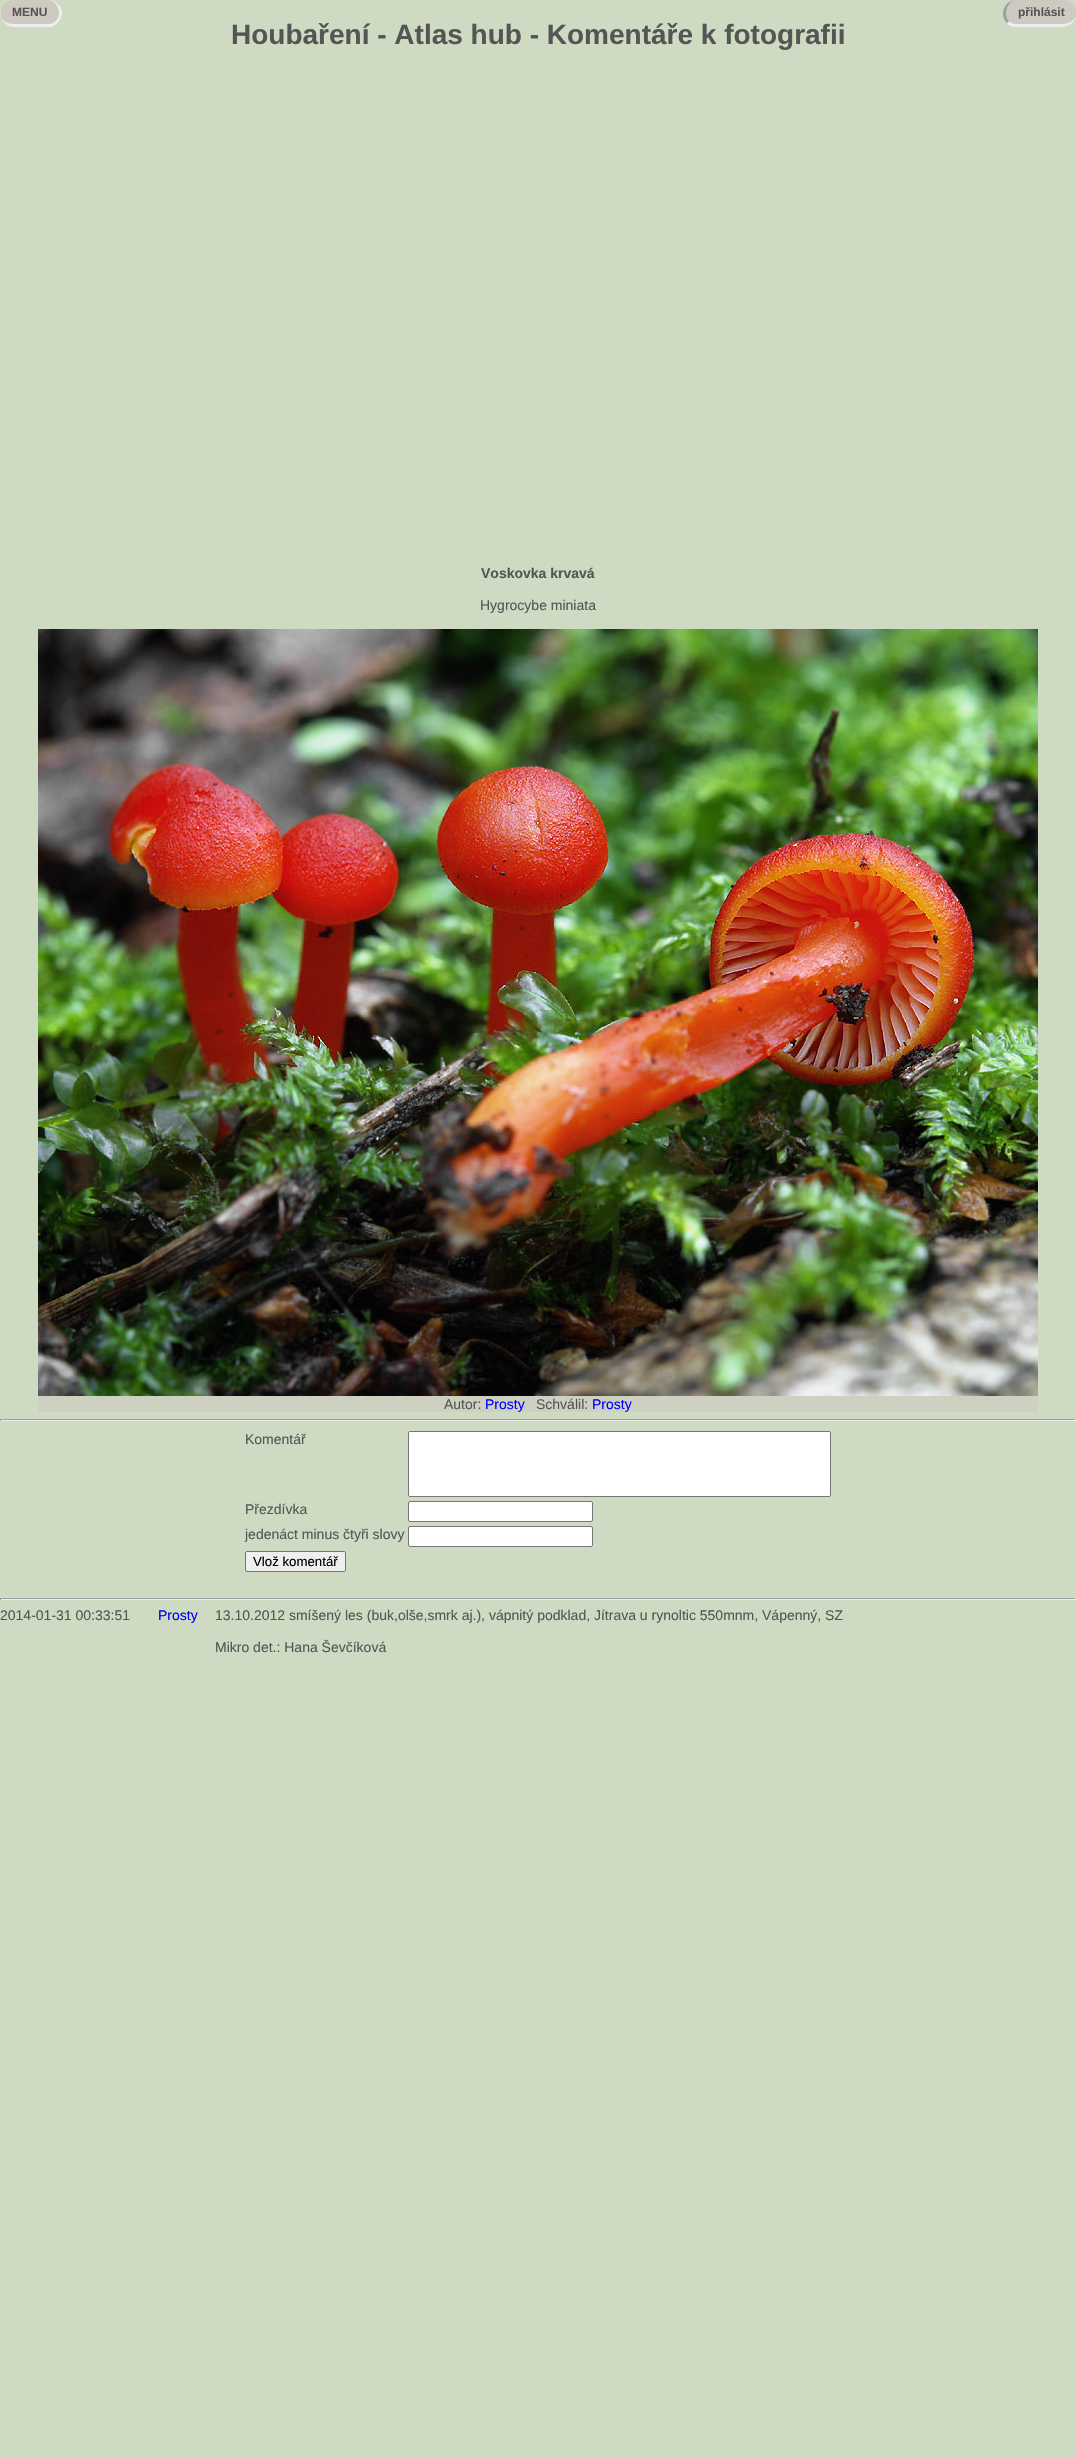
static SkFont makeFont(const char* family, int weight, float size, bool italic = false) {
  SkFontStyle style(weight, SkFontStyle::kNormal_Width,
    italic ? SkFontStyle::kItalic_Slant : SkFontStyle::kUpright_Slant);
  SkFont result(fontMgr->matchFamilyStyle(family, style), size);
  result.setSubpixel(true);
  return result;
}

static void text(SkCanvas* c, const char* s, float x, float y, const SkFont& font, SkColor color) {
  SkPaint ink(SkColor4f::FromColor(color));
  ink.setAntiAlias(true);
  c->drawString(s, x, y, font, ink);
}

static void box(SkCanvas* c, float l, float t, float r, float b, SkColor color) {
  SkPaint ink(SkColor4f::FromColor(color));
  ink.setAntiAlias(true);
  c->drawRect(SkRect::MakeLTRB(l, t, r, b), ink);
}

static void roundBox(SkCanvas* c, float l, float t, float r, float b, float radius, SkColor color) {
  SkPaint ink(SkColor4f::FromColor(color));
  ink.setAntiAlias(true);
  c->drawRoundRect(SkRect::MakeLTRB(l, t, r, b), radius, radius, ink);
}

static void picture(SkCanvas* c, const char* path, float l, float t, float r, float b) {
  auto image = SkImages::DeferredFromEncodedData(SkData::MakeFromFileName(path));
  c->drawImageRect(image, SkRect::MakeLTRB(l, t, r, b), SkSamplingOptions());
}

void draw(SkCanvas* c) {
  SkPaint paint;
  paint.setAntiAlias(true);
  c->clear(0xffcedac2);
  roundBox(c, 0, 0, 62, 27, 13.5f, 0xffcecac2);
  paint.setColor(0xffeeeeee);
  c->drawPath(SkPathBuilder(SkPathFillType::kEvenOdd).moveTo(14, 0).lineTo(51, 0).cubicTo(56, 1, 61, 6, 62, 11).cubicTo(63, 18, 58, 25, 51, 27).lineTo(14, 27).cubicTo(-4, 26, -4, 0, 14, 0).close().moveTo(14, 0).lineTo(48, 0).cubicTo(54, 0, 59, 6, 59, 14).cubicTo(59, 19, 54, 24, 48, 24).lineTo(14, 24).cubicTo(6, 24, 0, 19, 0, 14).cubicTo(0, 6, 6, 0, 14, 0).close().detach(), paint);
  SkFont face1 = makeFont("Liberation Sans", 700, 12);
  text(c, "MENU", 12, 16, face1, 0xff555555);
  roundBox(c, 1003, 0, 1076, 27, 13.5f, 0xffcecac2);
  c->drawPath(SkPathBuilder().moveTo(1062, 27).cubicTo(1070, 27, 1076, 21, 1076, 14).cubicTo(1076, 19, 1070, 24, 1062, 24).lineTo(1016, 24).cubicTo(1014, 24, 1011, 23, 1009, 21).lineTo(1007, 23).cubicTo(1009, 26, 1012, 27, 1016, 27).close().detach(), paint);
  paint.setColor(0xff9f9f9f);
  c->drawPath(SkPathBuilder().moveTo(1016, 0).cubicTo(1011, 0, 1006, 6, 1006, 14).cubicTo(1006, 16.5f, 1007, 19, 1009, 21).lineTo(1007, 23).cubicTo(999, 15, 1004, 0, 1016, 0).close().detach(), paint);
  text(c, "přihlásit", 1018, 16, face1, 0xff555555);
  SkFont face2 = makeFont("Liberation Sans", 700, 28);
  text(c, "Houbaření - Atlas hub - Komentáře k fotografii", 231, 44, face2, 0xff555555);
  SkFont face3 = makeFont("Liberation Sans", 700, 14);
  text(c, "Voskovka krvavá", 481, 578, face3, 0xff555555);
  SkFont face4 = makeFont("Liberation Sans", 400, 14);
  text(c, "Hygrocybe miniata", 480, 610, face4, 0xff555555);
  picture(c, "img_01.png", 38, 629, 1038, 1396);
  box(c, 38, 1396, 1038, 1412, 0xffced1c2);
  text(c, "Autor:", 444, 1409, face4, 0xff555555);
  text(c, "Prosty", 485, 1409, face4, 0xff0000ff);
  text(c, "Schválil:", 536, 1409, face4, 0xff555555);
  text(c, "Prosty", 592, 1409, face4, 0xff0000ff);
  box(c, 0, 1419, 1076, 1420, 0xff9f9f9f);
  box(c, 1075, 1419, 1076, 1421, 0xffeeeeee);
  box(c, 0, 1420, 1076, 1421, 0xffeeeeee);
  box(c, 0, 1419, 1, 1421, 0xff9f9f9f);
  text(c, "Komentář", 245, 1444, face4, 0xff555555);
  paint.setColor(0xffffffff);
  c->drawRoundRect(SkRect::MakeLTRB(408.5f, 1431.5f, 830.5f, 1496.5f), 1.5f, 1.5f, paint);
  paint.setStyle(SkPaint::kStroke_Style);
  paint.setStrokeWidth(1);
  paint.setColor(0xff767676);
  c->drawRoundRect(SkRect::MakeLTRB(408.5f, 1431.5f, 830.5f, 1496.5f), 1.5f, 1.5f, paint);
  text(c, "Přezdívka", 245, 1514, face4, 0xff555555);
  paint.setStyle(SkPaint::kFill_Style);
  paint.setColor(0xffffffff);
  c->drawRoundRect(SkRect::MakeLTRB(408.5f, 1501.5f, 592.5f, 1521.5f), 1.5f, 1.5f, paint);
  paint.setStyle(SkPaint::kStroke_Style);
  paint.setColor(0xff767676);
  c->drawRoundRect(SkRect::MakeLTRB(408.5f, 1501.5f, 592.5f, 1521.5f), 1.5f, 1.5f, paint);
  text(c, "jedenáct minus čtyři slovy", 245, 1539, face4, 0xff555555);
  paint.setStyle(SkPaint::kFill_Style);
  paint.setColor(0xffffffff);
  c->drawRoundRect(SkRect::MakeLTRB(408.5f, 1526.5f, 592.5f, 1546.5f), 1.5f, 1.5f, paint);
  paint.setStyle(SkPaint::kStroke_Style);
  paint.setColor(0xff767676);
  c->drawRoundRect(SkRect::MakeLTRB(408.5f, 1526.5f, 592.5f, 1546.5f), 1.5f, 1.5f, paint);
  paint.setStyle(SkPaint::kFill_Style);
  paint.setColor(0xffefefef);
  c->drawRoundRect(SkRect::MakeLTRB(245.5f, 1551.5f, 345.5f, 1571.5f), 1.5f, 1.5f, paint);
  paint.setStyle(SkPaint::kStroke_Style);
  paint.setColor(0xff767676);
  c->drawRoundRect(SkRect::MakeLTRB(245.5f, 1551.5f, 345.5f, 1571.5f), 1.5f, 1.5f, paint);
  SkFont face5 = makeFont("Liberation Sans", 400, 13.25f);
  text(c, "Vlož komentář", 253, 1566, face5, 0xff000000);
  box(c, 0, 1598, 1076, 1599, 0xff9f9f9f);
  box(c, 1075, 1598, 1076, 1600, 0xffeeeeee);
  box(c, 0, 1599, 1076, 1600, 0xffeeeeee);
  box(c, 0, 1598, 1, 1600, 0xff9f9f9f);
  text(c, "2014-01-31 00:33:51", 0, 1620, face4, 0xff555555);
  text(c, "Prosty", 158, 1620, face4, 0xff0000ff);
  text(c, "13.10.2012 smíšený les (buk,olše,smrk aj.), vápnitý podklad, Jítrava u rynoltic 550mnm, Vápenný, SZ", 215, 1620, face4, 0xff555555);
  text(c, "Mikro det.: Hana Ševčíková", 215, 1652, face4, 0xff555555);
}
